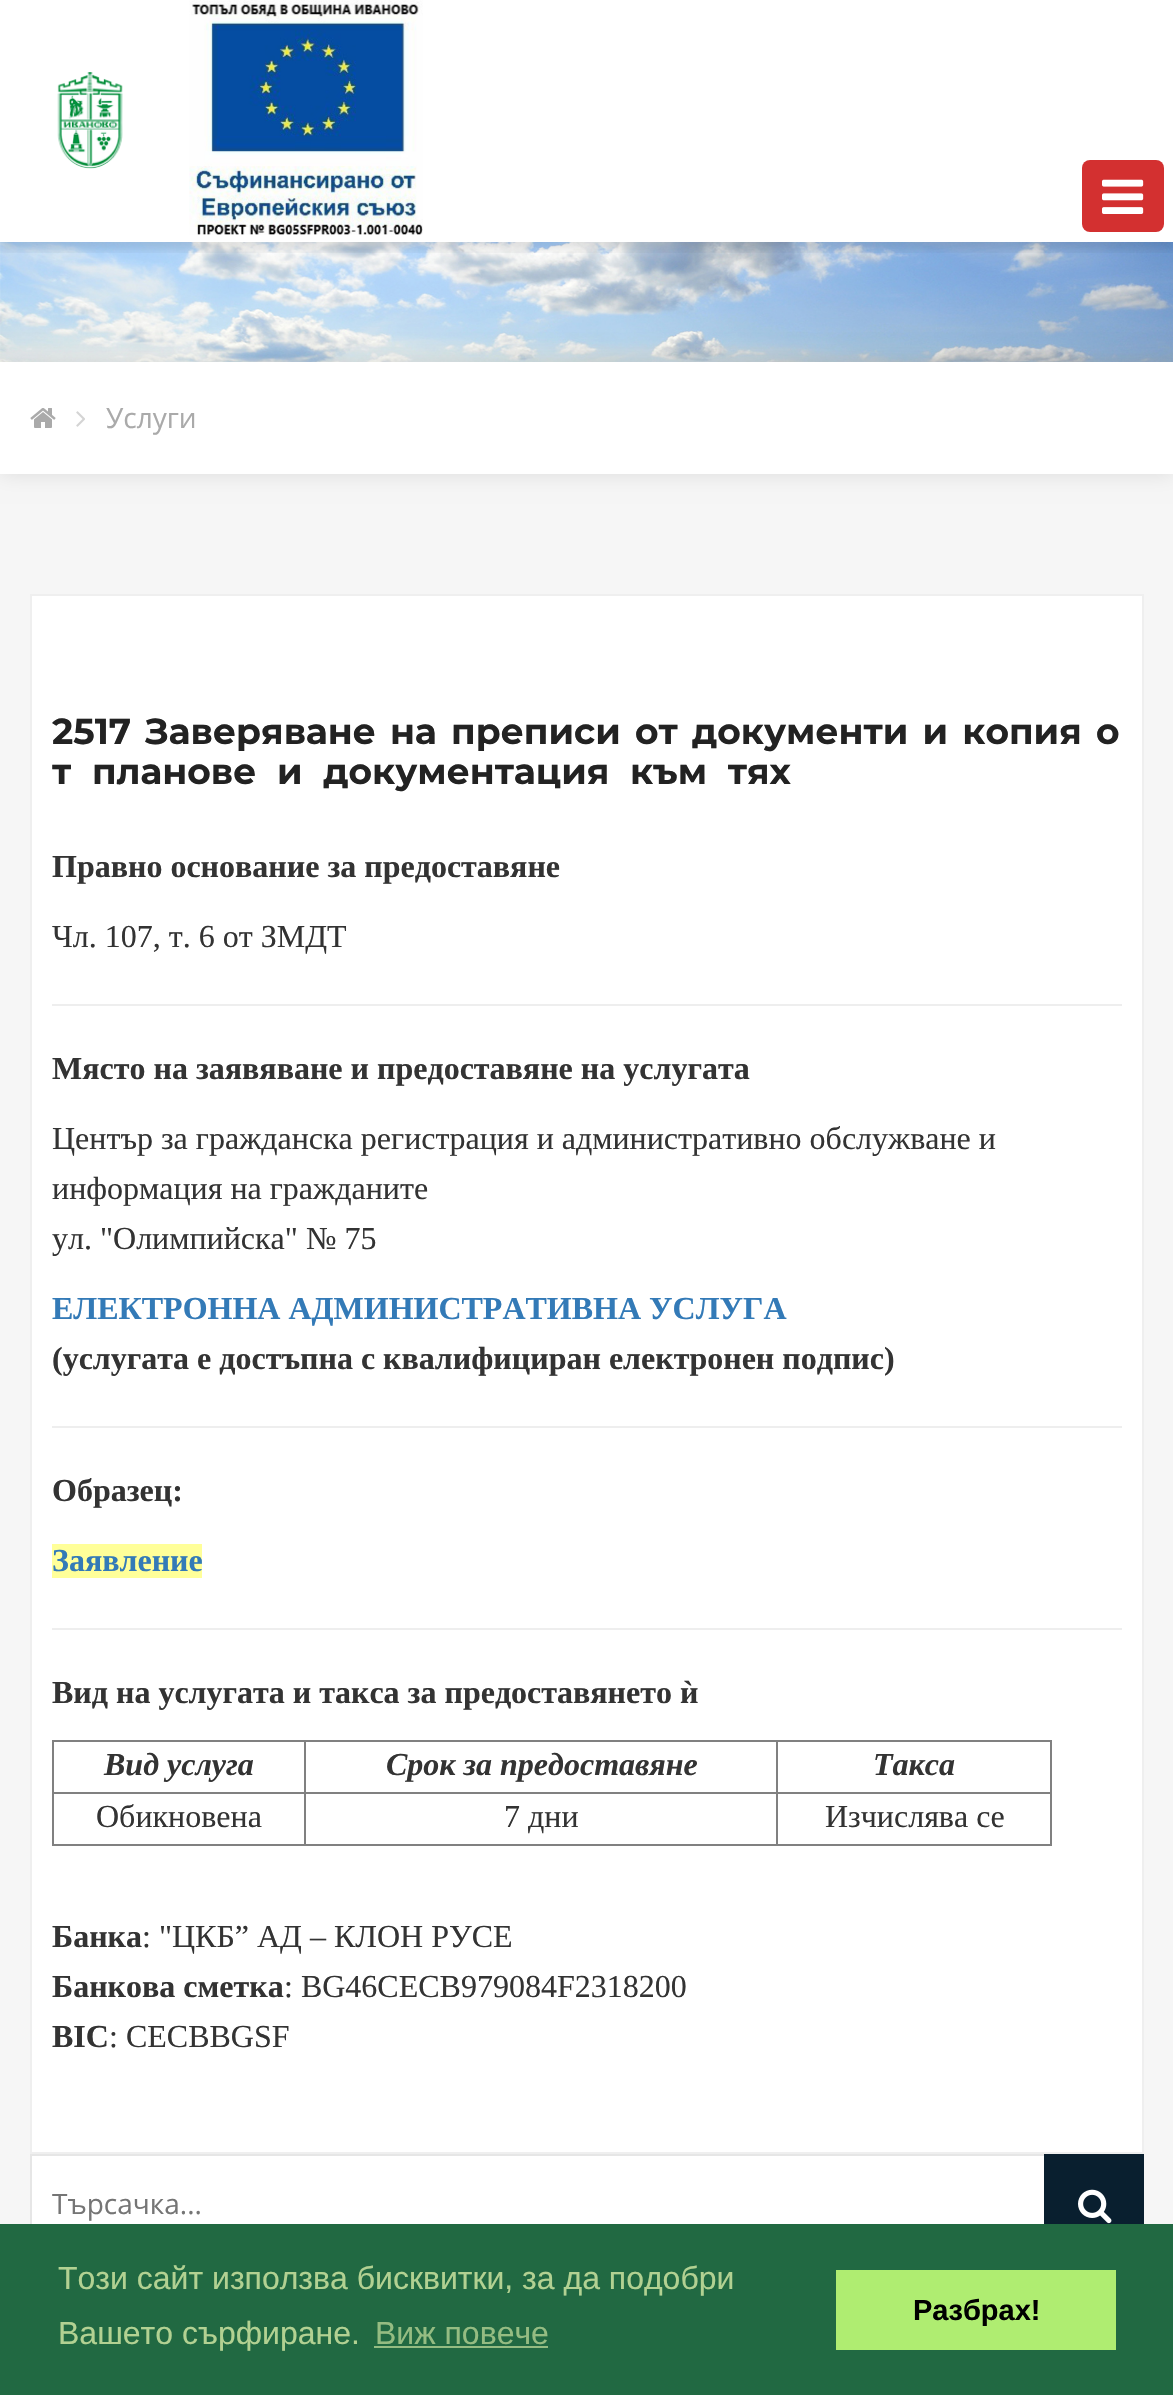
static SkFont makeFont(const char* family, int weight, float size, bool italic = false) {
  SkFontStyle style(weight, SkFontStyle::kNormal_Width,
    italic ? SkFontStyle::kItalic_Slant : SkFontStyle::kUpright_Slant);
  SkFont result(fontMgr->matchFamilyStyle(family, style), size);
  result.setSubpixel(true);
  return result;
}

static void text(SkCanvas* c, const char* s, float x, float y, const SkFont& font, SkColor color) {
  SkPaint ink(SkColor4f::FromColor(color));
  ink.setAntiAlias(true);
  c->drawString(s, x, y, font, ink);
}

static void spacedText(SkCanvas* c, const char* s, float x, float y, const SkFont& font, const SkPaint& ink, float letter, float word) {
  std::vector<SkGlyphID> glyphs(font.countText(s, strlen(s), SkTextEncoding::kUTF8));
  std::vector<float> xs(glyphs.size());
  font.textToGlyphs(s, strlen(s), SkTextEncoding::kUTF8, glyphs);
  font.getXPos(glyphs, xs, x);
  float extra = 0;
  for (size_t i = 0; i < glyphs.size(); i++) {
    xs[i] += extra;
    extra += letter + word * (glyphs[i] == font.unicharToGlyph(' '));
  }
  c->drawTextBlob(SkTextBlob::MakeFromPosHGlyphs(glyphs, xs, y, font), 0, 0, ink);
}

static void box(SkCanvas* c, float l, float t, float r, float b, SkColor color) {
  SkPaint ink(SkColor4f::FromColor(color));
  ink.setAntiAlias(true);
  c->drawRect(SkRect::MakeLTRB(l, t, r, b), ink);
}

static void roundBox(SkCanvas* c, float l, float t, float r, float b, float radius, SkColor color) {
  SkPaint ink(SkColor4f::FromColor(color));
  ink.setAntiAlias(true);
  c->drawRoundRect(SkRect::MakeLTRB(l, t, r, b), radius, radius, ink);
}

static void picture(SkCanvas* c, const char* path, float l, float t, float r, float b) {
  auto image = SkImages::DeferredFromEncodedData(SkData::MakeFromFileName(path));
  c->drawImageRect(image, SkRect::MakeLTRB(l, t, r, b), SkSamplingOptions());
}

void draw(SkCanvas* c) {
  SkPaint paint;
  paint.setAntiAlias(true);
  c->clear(0xfff6f6f6);
  box(c, 0, 0, 1173, 242, 0xffffffff);
  picture(c, "img_04.png", 0, 242, 1173, 362);
  c->save();
  c->clipRect(SkRect::MakeLTRB(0, 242, 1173, 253));
  paint.setColor(0x1a000000);
  paint.setMaskFilter(SkMaskFilter::MakeBlur(kNormal_SkBlurStyle, 4));
  c->drawRect(SkRect::MakeLTRB(0, 168, 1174, 250), paint);
  paint.setMaskFilter(nullptr);
  c->restore();
  picture(c, "img_01.png", 57, 72, 123, 169);
  picture(c, "img_02.png", 189, 0, 423, 235);
  roundBox(c, 1082, 160, 1164, 232, 8, 0xffd33030);
  picture(c, "img_03.png", 1102, 179, 1144, 214);
  paint.setMaskFilter(SkMaskFilter::MakeBlur(kNormal_SkBlurStyle, 10));
  c->drawRect(SkRect::MakeLTRB(0, 362, 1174, 474), paint);
  paint.setMaskFilter(nullptr);
  box(c, 0, 362, 1173, 474, 0xffffffff);
  picture(c, "img_05.png", 30, 408, 56, 428);
  picture(c, "img_06.png", 76, 411, 85, 427);
  SkFont face1 = makeFont("Open Sans", 400, 28);
  text(c, "Услуги", 106, 428, face1, 0xffaaaaaa);
  paint.setColor(0xffffffff);
  c->drawRect(SkRect::MakeLTRB(31, 595, 1143, 2153), paint);
  paint.setStyle(SkPaint::kStroke_Style);
  paint.setStrokeWidth(2);
  paint.setColor(0xffefefef);
  c->drawRect(SkRect::MakeLTRB(31, 595, 1143, 2153), paint);
  SkFont face2 = makeFont("Montserrat", 700, 36);
  paint.setStyle(SkPaint::kFill_Style);
  paint.setColor(0xff222222);
  spacedText(c, "2517 Заверяване на преписи от документи и копия о", 52, 744, face2, paint, 0, 4);
  spacedText(c, "т планове и документация към тях", 52, 784, face2, paint, 0, 10.5f);
  SkFont face3 = makeFont("Liberation Serif", 700, 32);
  text(c, "Правно основание за предоставяне", 52, 877, face3, 0xff333333);
  SkFont face4 = makeFont("Liberation Serif", 400, 32);
  text(c, "Чл. 107, т. 6 от ЗМДТ", 52, 947, face4, 0xff333333);
  box(c, 52, 1004, 1122, 1006, 0xffeeeeee);
  text(c, "Място на заявяване и предоставяне на услугата", 52, 1079, face3, 0xff333333);
  text(c, "Център за гражданска регистрация и административно обслужване и", 52, 1149, face4, 0xff333333);
  text(c, "информация на гражданите", 52, 1199, face4, 0xff333333);
  text(c, "ул. \"Олимпийска\" № 75", 52, 1249, face4, 0xff333333);
  text(c, "ЕЛЕКТРОННА АДМИНИСТРАТИВНА УСЛУГА", 52, 1319, face3, 0xff337ab7);
  text(c, "(услугата е достъпна с квалифициран електронен подпис)", 52, 1369, face3, 0xff333333);
  box(c, 52, 1426, 1122, 1428, 0xffeeeeee);
  text(c, "Образец:", 52, 1501, face3, 0xff333333);
  box(c, 52, 1544, 202, 1578, 0xffffff99);
  text(c, "Заявление", 52, 1571, face3, 0xff337ab7);
  box(c, 52, 1628, 1122, 1630, 0xffeeeeee);
  text(c, "Вид на услугата и такса за предоставянето ѝ", 52, 1703, face3, 0xff333333);
  box(c, 52, 1740, 1052, 1742, 0xff808080);
  box(c, 1050, 1740, 1052, 1846, 0xff808080);
  box(c, 52, 1844, 1052, 1846, 0xff808080);
  box(c, 52, 1740, 54, 1846, 0xff808080);
  SkFont face5 = makeFont("Liberation Serif", 700, 32, true);
  text(c, "Вид услуга", 104, 1775, face5, 0xff333333);
  box(c, 776, 1792, 1052, 1794, 0xff808080);
  box(c, 776, 1792, 778, 1846, 0xff808080);
  box(c, 304, 1792, 778, 1794, 0xff808080);
  box(c, 304, 1792, 306, 1846, 0xff808080);
  box(c, 52, 1792, 306, 1794, 0xff808080);
  box(c, 304, 1740, 306, 1794, 0xff808080);
  text(c, "Срок за предоставяне", 386, 1775, face5, 0xff333333);
  box(c, 776, 1740, 778, 1794, 0xff808080);
  text(c, "Такса", 873, 1775, face5, 0xff333333);
  text(c, "Обикновена", 96, 1827, face4, 0xff333333);
  text(c, "7 дни", 504, 1827, face4, 0xff333333);
  text(c, "Изчислява се", 825, 1827, face4, 0xff333333);
  text(c, "Банка", 52, 1947, face3, 0xff333333);
  text(c, ": \"ЦКБ” АД – КЛОН РУСЕ", 142, 1947, face4, 0xff333333);
  text(c, "Банкова сметка", 52, 1997, face3, 0xff333333);
  text(c, ": BG46CECB979084F2318200", 284, 1997, face4, 0xff333333);
  text(c, "BIC", 52, 2047, face3, 0xff333333);
  text(c, ": CECBBGSF", 109, 2047, face4, 0xff333333);
  box(c, 32, 2156, 1044, 2224, 0xffffffff);
  paint.setStyle(SkPaint::kStroke_Style);
  paint.setColor(0xffe6e6e6);
  c->drawRect(SkRect::MakeLTRB(31, 2155, 1143, 2253), paint);
  text(c, "Търсачка...", 52, 2214, face1, 0xff757575);
  box(c, 1044, 2154, 1144, 2224, 0xff091f2f);
  picture(c, "img_07.png", 1078, 2189, 1112, 2224);
  box(c, 0, 2224, 1173, 2395, 0xff216942);
  SkFont face6 = makeFont("Liberation Sans", 400, 32);
  text(c, "Този сайт използва бисквитки, за да подобри", 58, 2289, face6, 0xffb2d192);
  text(c, "Вашето сърфиране.", 58, 2344, face6, 0xffb2d192);
  text(c, "Виж повече", 375, 2344, face6, 0xff95bc82);
  box(c, 374, 2346, 548, 2348, 0xff95bc82);
  box(c, 836, 2270, 1116, 2350, 0xffafed71);
  SkFont face7 = makeFont("Liberation Sans", 700, 29);
  text(c, "Разбрах!", 913, 2320, face7, 0xff000000);
}
